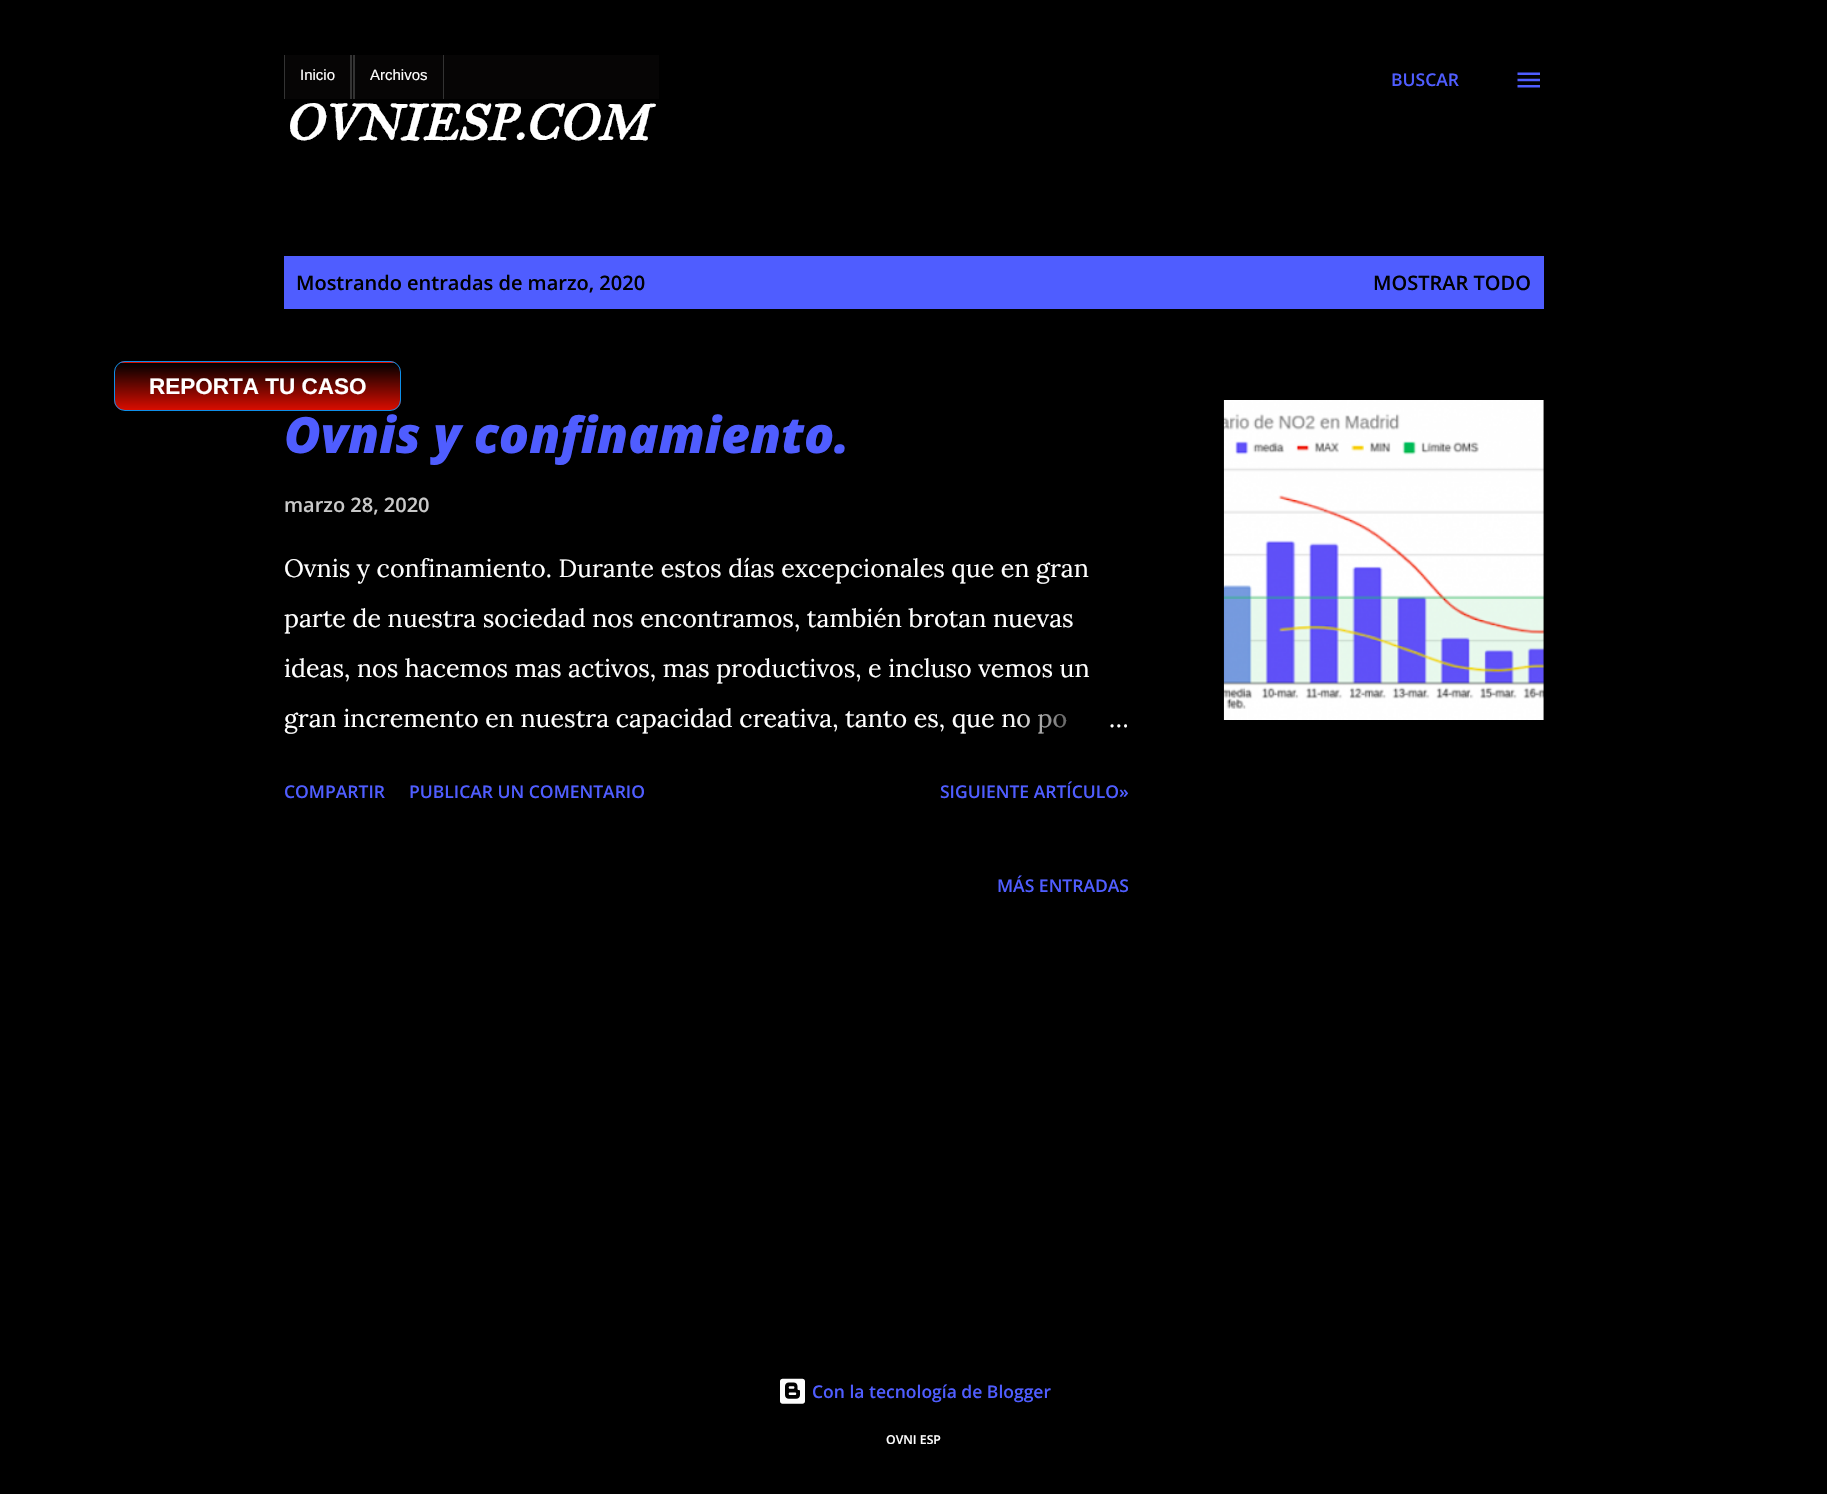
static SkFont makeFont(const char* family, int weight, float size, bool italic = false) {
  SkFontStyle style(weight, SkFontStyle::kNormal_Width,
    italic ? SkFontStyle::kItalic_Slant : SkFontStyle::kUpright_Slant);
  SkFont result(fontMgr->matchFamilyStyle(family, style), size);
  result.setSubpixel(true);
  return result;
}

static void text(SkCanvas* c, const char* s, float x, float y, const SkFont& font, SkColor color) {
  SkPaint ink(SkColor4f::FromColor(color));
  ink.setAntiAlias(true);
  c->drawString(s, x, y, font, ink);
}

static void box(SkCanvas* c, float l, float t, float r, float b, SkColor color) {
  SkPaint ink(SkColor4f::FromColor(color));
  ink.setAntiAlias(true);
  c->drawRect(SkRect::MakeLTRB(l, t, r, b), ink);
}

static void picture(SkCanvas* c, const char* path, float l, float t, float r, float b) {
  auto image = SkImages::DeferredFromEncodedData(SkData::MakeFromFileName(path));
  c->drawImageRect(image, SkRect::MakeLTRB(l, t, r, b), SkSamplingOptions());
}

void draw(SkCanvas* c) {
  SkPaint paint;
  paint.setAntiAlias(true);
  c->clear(0xff000000);
  box(c, 285, 55, 659, 99, 0xff060505);
  box(c, 350, 55, 352, 99, 0xff333333);
  box(c, 284, 55, 285, 99, 0xff333333);
  SkFont face1 = makeFont("Liberation Sans", 400, 15);
  text(c, "Inicio", 300, 80, face1, 0xffffffff);
  box(c, 353, 55, 355, 99, 0xff333333);
  box(c, 443, 55, 444, 99, 0xff333333);
  text(c, "Archivos", 370, 80, face1, 0xffffffff);
  SkFont face2 = makeFont("IM FELL Great Primer SC", 700, 50, true);
  text(c, "OVNIESP.COM", 284, 140, face2, 0xffffffff);
  SkFont face3 = makeFont("Open Sans", 600, 17.5f);
  text(c, "BUSCAR", 1391, 86, face3, 0xff4f5dff);
  picture(c, "img_01.png", 1517, 72, 1540, 88);
  box(c, 284, 256, 1544, 309, 0xff4f5dff);
  SkFont face4 = makeFont("Open Sans", 600, 20);
  text(c, "Mostrando entradas de marzo, 2020", 296, 290, face4, 0xff000000);
  text(c, "MOSTRAR TODO", 1373, 290, face4, 0xff000000);
  c->save();
  c->clipPath(SkPathBuilder().moveTo(125, 361).lineTo(390, 361).cubicTo(396, 361, 401, 366, 401, 372).lineTo(401, 400).cubicTo(401, 406, 396, 411, 390, 411).lineTo(125, 411).cubicTo(119, 411, 114, 406, 114, 400).lineTo(114, 372).cubicTo(114, 366, 119, 361, 125, 361).close().detach(), true);
  {
    const SkColor colors[] = {0xff000000, 0xffd90d00};
    const float stops[] = {0, 1};
    const SkPoint ends[] = {{258, 363}, {258, 410}};
    paint.setShader(SkGradientShader::MakeLinear(ends, colors, stops, 2, SkTileMode::kClamp));
    paint.setAlpha(255);
  }
  c->drawRect(SkRect::MakeLTRB(114, 363, 401, 410), paint);
  {
    const SkColor colors[] = {0xff000000, 0xffd90d00};
    const float stops[] = {0, 1};
    const SkPoint ends[] = {{258, 315}, {258, 363}};
    paint.setShader(SkGradientShader::MakeLinear(ends, colors, stops, 2, SkTileMode::kClamp));
    paint.setAlpha(255);
  }
  c->drawRect(SkRect::MakeLTRB(114, 361, 401, 363), paint);
  c->restore();
  paint.setStyle(SkPaint::kStroke_Style);
  paint.setStrokeWidth(1);
  paint.setShader(nullptr);
  paint.setColor(0xff0e8fe9);
  c->drawRoundRect(SkRect::MakeLTRB(114.5f, 361.5f, 400.5f, 410.5f), 10.5f, 10.5f, paint);
  SkFont face5 = makeFont("Liberation Sans", 700, 22.5f);
  text(c, "REPORTA TU CASO", 149, 394, face5, 0xffffffff);
  SkFont face6 = makeFont("Open Sans", 800, 50, true);
  text(c, "Ovnis y confinamiento.", 284, 453, face6, 0xff4f5dff);
  text(c, "marzo 28, 2020", 284, 512, face4, 0xffc9c9c9);
  SkFont face7 = makeFont("Lora", 400, 25);
  text(c, "Ovnis y confinamiento. Durante estos días excepcionales que en gran", 284, 577, face7, 0xffffffff);
  text(c, "parte de nuestra sociedad nos encontramos, también brotan nuevas", 284, 627, face7, 0xffffffff);
  text(c, "ideas, nos hacemos mas activos, mas productivos, e incluso vemos un", 284, 677, face7, 0xffffffff);
  text(c, "gran incremento en nuestra capacidad creativa, tanto es, que no po", 284, 727, face7, 0xffffffff);
  paint.setStyle(SkPaint::kFill_Style);
  {
    const SkColor colors[] = {0xff000000, 0xff000000, 0x00000000};
    const float stops[] = {0, 0.2f, 1};
    const SkPoint ends[] = {{1129, 718}, {1009, 718}};
    paint.setShader(SkGradientShader::MakeLinear(ends, colors, stops, 3, SkTileMode::kClamp));
    paint.setAlpha(255);
  }
  c->drawRect(SkRect::MakeLTRB(1011, 714, 1066, 734), paint);
  text(c, "…", 1109, 727, face7, 0xffffffff);
  text(c, "COMPARTIR", 284, 798, face3, 0xff4f5dff);
  text(c, "PUBLICAR UN COMENTARIO", 409, 798, face3, 0xff4f5dff);
  text(c, "SIGUIENTE ARTÍCULO»", 940, 798, face3, 0xff4f5dff);
  picture(c, "img_02.png", 1223, 400, 1544, 720);
  text(c, "MÁS ENTRADAS", 997, 892, face3, 0xff4f5dff);
  picture(c, "img_03.png", 780, 1378, 805, 1404);
  text(c, "Con la tecnología de Blogger", 812, 1398, face3, 0xff4f5dff);
  SkFont face8 = makeFont("Open Sans", 600, 12.25f);
  text(c, "OVNI ESP", 886, 1444, face8, 0xffffffff);
}
